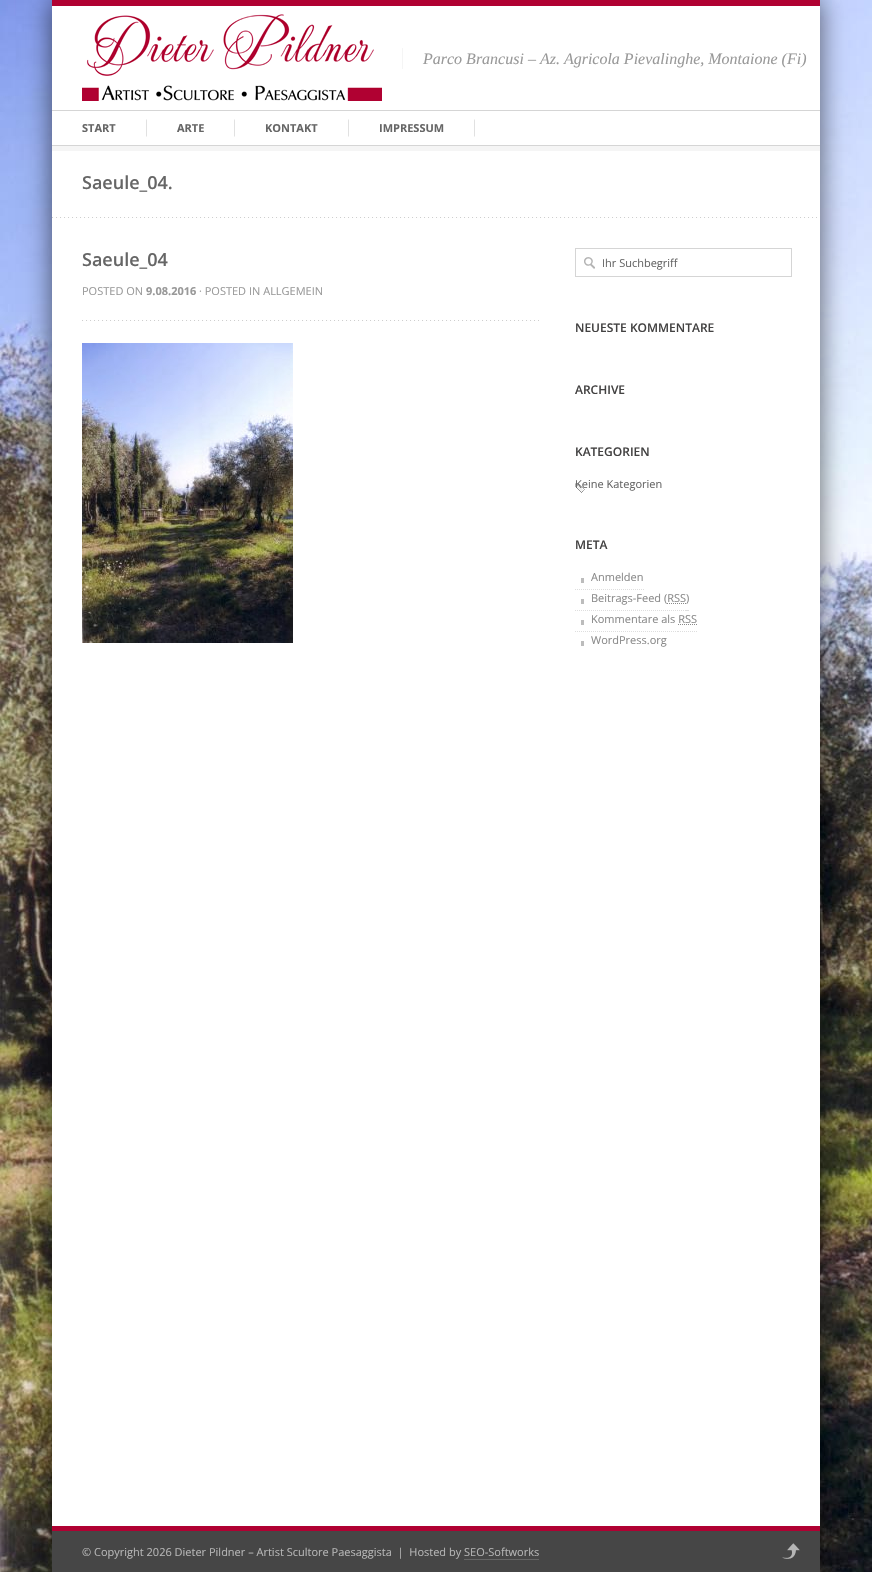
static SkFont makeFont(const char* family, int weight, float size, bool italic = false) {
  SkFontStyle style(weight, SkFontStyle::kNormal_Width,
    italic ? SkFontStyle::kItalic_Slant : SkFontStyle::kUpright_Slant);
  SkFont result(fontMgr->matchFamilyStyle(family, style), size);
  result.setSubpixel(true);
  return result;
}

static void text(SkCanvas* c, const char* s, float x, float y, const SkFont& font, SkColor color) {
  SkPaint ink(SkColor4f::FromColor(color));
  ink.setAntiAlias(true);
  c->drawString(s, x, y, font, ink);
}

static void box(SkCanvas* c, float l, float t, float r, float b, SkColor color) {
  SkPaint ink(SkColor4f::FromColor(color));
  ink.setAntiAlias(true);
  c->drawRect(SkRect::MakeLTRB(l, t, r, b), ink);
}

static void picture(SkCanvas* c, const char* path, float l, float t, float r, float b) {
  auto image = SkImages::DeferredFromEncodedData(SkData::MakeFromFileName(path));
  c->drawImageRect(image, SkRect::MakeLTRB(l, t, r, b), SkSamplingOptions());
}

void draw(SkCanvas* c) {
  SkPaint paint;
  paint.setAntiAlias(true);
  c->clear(0xffffffff);
  picture(c, "img_01.png", 0, 0, 872, 1572);
  paint.setColor(0x99000000);
  paint.setMaskFilter(SkMaskFilter::MakeBlur(kNormal_SkBlurStyle, 12.5f));
  c->drawRect(SkRect::MakeLTRB(52, 0, 820, 1572), paint);
  paint.setMaskFilter(nullptr);
  box(c, 52, 6, 820, 1526, 0xffffffff);
  box(c, 52, 0, 820, 6, 0xffb00132);
  picture(c, "img_02.png", 82, 14, 382, 101);
  box(c, 402, 48, 403, 69, 0xfff5f5f5);
  SkFont face1 = makeFont("Liberation Serif", 400, 16, true);
  text(c, "Parco Brancusi – Az. Agricola Pievalinghe, Montaione (Fi)", 423, 64, face1, 0xff999999);
  box(c, 52, 110, 820, 111, 0xffd5d5d5);
  picture(c, "img_03.png", 146, 119, 147, 137);
  SkFont face2 = makeFont("Open Sans", 700, 11);
  text(c, "START", 82, 132, face2, 0xff666666);
  picture(c, "img_03.png", 234, 119, 235, 137);
  text(c, "ARTE", 177, 132, face2, 0xff666666);
  picture(c, "img_03.png", 348, 119, 349, 137);
  text(c, "KONTAKT", 265, 132, face2, 0xff666666);
  picture(c, "img_03.png", 474, 119, 475, 137);
  text(c, "IMPRESSUM", 379, 132, face2, 0xff666666);
  box(c, 52, 146, 820, 151, 0xfff5f5f5);
  box(c, 52, 145, 820, 146, 0xffd5d5d5);
  picture(c, "img_04.png", 52, 217, 817, 218);
  SkFont face3 = makeFont("Open Sans", 600, 18);
  text(c, "Saeule_04.", 82, 189, face3, 0xff666666);
  text(c, "Saeule_04", 82, 266, face3, 0xff666666);
  picture(c, "img_05.png", 82, 320, 539, 321);
  SkFont face4 = makeFont("Open Sans", 400, 11);
  text(c, "POSTED ON", 82, 295, face4, 0xff999999);
  text(c, "9.08.2016", 146, 295, face2, 0xff999999);
  text(c, "· POSTED IN ALLGEMEIN", 199, 295, face4, 0xff999999);
  picture(c, "img_06.png", 82, 343, 293, 643);
  picture(c, "img_07.png", 584, 257, 595, 269);
  paint.setStyle(SkPaint::kStroke_Style);
  paint.setStrokeWidth(1);
  paint.setColor(0xffd5d5d5);
  c->drawRect(SkRect::MakeLTRB(575.5f, 248.5f, 791.5f, 276.5f), paint);
  text(c, "Ihr Suchbegriff", 602, 267, face4, 0xff666666);
  SkFont face5 = makeFont("Open Sans", 600, 12);
  text(c, "NEUESTE KOMMENTARE", 575, 332, face5, 0xff434242);
  text(c, "ARCHIVE", 575, 394, face5, 0xff434242);
  text(c, "KATEGORIEN", 575, 456, face5, 0xff434242);
  picture(c, "img_08.png", 575, 483, 585, 493);
  text(c, "Keine Kategorien", 575, 488, face4, 0xff666666);
  text(c, "META", 575, 549, face5, 0xff434242);
  box(c, 581, 578, 584, 583, 0xffbcbcbc);
  text(c, "Anmelden", 591, 581, face4, 0xff8a8a8a);
  paint.setColor(0xffdedede);
  paint.setPathEffect(SkDashPathEffect::Make({{1, 1}}, 0));
  c->drawPath(SkPathBuilder().moveTo(575, 589.5f).lineTo(644, 589.5f).detach(), paint);
  paint.setPathEffect(nullptr);
  box(c, 581, 599, 584, 604, 0xffbcbcbc);
  text(c, "Beitrags-Feed (RSS)", 591, 602, face4, 0xff8a8a8a);
  paint.setPathEffect(SkDashPathEffect::Make({{1, 1}}, 0));
  c->drawPath(SkPathBuilder().moveTo(575, 610.5f).lineTo(667, 610.5f).detach(), paint);
  paint.setPathEffect(nullptr);
  paint.setPathEffect(SkDashPathEffect::Make({{1, 1}}, 0));
  c->drawPath(SkPathBuilder().moveTo(667, 610.5f).lineTo(686, 610.5f).detach(), paint);
  paint.setPathEffect(nullptr);
  box(c, 686, 610, 689, 611, 0xffdedede);
  paint.setColor(0xff8a8a8a);
  paint.setPathEffect(SkDashPathEffect::Make({{1, 1}}, 0));
  c->drawPath(SkPathBuilder().moveTo(667, 603.5f).lineTo(686, 603.5f).detach(), paint);
  paint.setPathEffect(nullptr);
  box(c, 581, 620, 584, 625, 0xffbcbcbc);
  text(c, "Kommentare als RSS", 591, 623, face4, 0xff8a8a8a);
  paint.setColor(0xffdedede);
  paint.setPathEffect(SkDashPathEffect::Make({{1, 1}}, 0));
  c->drawPath(SkPathBuilder().moveTo(575, 631.5f).lineTo(678, 631.5f).detach(), paint);
  paint.setPathEffect(nullptr);
  paint.setPathEffect(SkDashPathEffect::Make({{1, 1}}, 0));
  c->drawPath(SkPathBuilder().moveTo(678, 631.5f).lineTo(697, 631.5f).detach(), paint);
  paint.setPathEffect(nullptr);
  paint.setColor(0xff8a8a8a);
  paint.setPathEffect(SkDashPathEffect::Make({{1, 1}}, 0));
  c->drawPath(SkPathBuilder().moveTo(678, 624.5f).lineTo(697, 624.5f).detach(), paint);
  paint.setPathEffect(nullptr);
  box(c, 581, 641, 584, 646, 0xffbcbcbc);
  text(c, "WordPress.org", 591, 644, face4, 0xff8a8a8a);
  box(c, 52, 1526, 820, 1531, 0xffb00132);
  box(c, 52, 1531, 820, 1572, 0xff464646);
  text(c, "© Copyright 2026 Dieter Pildner – Artist Scultore Paesaggista  |  Hosted by SEO-Softworks", 82, 1556, face4, 0xffb5b5b5);
  picture(c, "img_09.png", 782, 1543, 800, 1559);
  box(c, 464, 1559, 539, 1560, 0xff666666);
}
